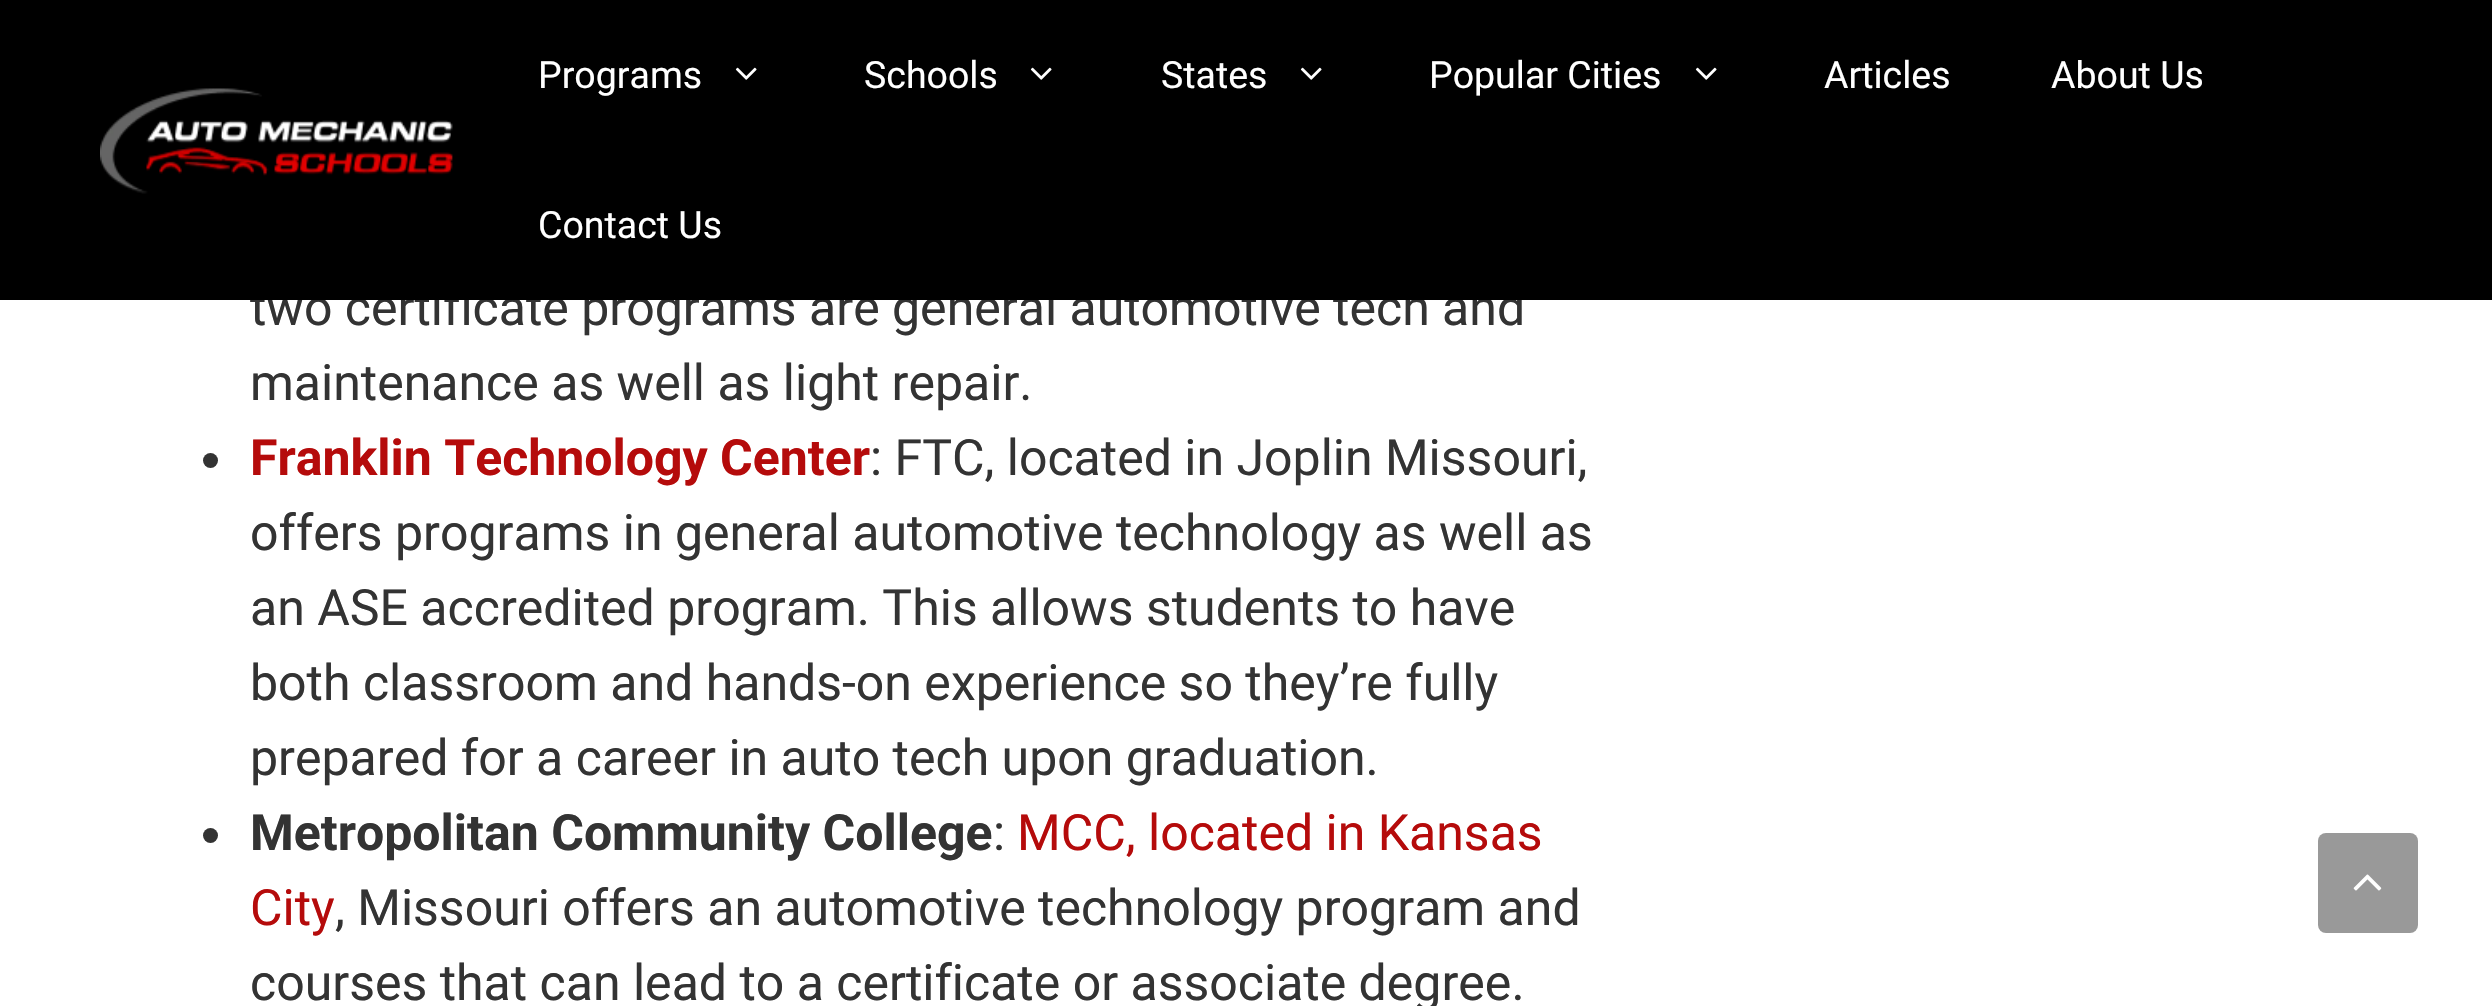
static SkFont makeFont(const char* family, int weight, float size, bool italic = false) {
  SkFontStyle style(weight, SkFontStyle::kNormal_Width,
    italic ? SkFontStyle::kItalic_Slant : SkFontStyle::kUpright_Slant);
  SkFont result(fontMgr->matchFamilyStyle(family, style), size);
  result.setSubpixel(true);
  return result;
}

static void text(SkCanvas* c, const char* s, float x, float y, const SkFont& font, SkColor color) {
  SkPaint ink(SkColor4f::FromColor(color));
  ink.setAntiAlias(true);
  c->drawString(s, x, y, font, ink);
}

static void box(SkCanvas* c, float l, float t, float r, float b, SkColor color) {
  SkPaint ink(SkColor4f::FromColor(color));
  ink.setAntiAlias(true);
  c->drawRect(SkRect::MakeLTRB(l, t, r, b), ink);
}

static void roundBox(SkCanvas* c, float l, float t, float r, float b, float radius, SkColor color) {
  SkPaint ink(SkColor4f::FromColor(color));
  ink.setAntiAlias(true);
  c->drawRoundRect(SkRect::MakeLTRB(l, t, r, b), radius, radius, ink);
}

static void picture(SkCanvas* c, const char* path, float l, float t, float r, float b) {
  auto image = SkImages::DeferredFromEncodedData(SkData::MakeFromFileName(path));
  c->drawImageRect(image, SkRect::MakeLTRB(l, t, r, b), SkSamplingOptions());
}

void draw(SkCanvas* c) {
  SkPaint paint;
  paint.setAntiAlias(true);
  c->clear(0xffffffff);
  SkFont face1 = makeFont("Roboto", 400, 50);
  text(c, "two certificate programs are general automotive tech and", 250, 325, face1, 0xff333333);
  box(c, 0, 0, 2492, 300, 0xff000000);
  picture(c, "img_01.png", 100, 88, 453, 194);
  SkFont face2 = makeFont("Roboto", 400, 37.5f);
  text(c, "Programs", 538, 88, face2, 0xffffffff);
  picture(c, "img_02.png", 735, 67, 757, 80);
  text(c, "Schools", 864, 88, face2, 0xffffffff);
  picture(c, "img_02.png", 1030, 67, 1052, 80);
  text(c, "States", 1161, 88, face2, 0xffffffff);
  picture(c, "img_02.png", 1300, 67, 1322, 80);
  text(c, "Popular Cities", 1429, 88, face2, 0xffffffff);
  picture(c, "img_02.png", 1695, 67, 1717, 80);
  text(c, "Articles", 1824, 88, face2, 0xffffffff);
  text(c, "About Us", 2051, 88, face2, 0xffffffff);
  text(c, "Contact Us", 538, 238, face2, 0xffffffff);
  text(c, "maintenance as well as light repair.", 250, 400, face1, 0xff333333);
  paint.setColor(0xff333333);
  c->drawCircle(210.5f, 460.5f, 7.5f, paint);
  SkFont face3 = makeFont("Roboto", 700, 50);
  text(c, "Franklin Technology Center", 250, 475, face3, 0xffb50b0b);
  text(c, ": FTC, located in Joplin Missouri,", 870, 475, face1, 0xff333333);
  text(c, "offers programs in general automotive technology as well as", 250, 550, face1, 0xff333333);
  text(c, "an ASE accredited program. This allows students to have", 250, 625, face1, 0xff333333);
  text(c, "both classroom and hands-on experience so they’re fully", 250, 700, face1, 0xff333333);
  text(c, "prepared for a career in auto tech upon graduation.", 250, 775, face1, 0xff333333);
  c->drawCircle(210.5f, 835.5f, 7.5f, paint);
  text(c, "Metropolitan Community College", 250, 850, face3, 0xff333333);
  text(c, ":", 993, 850, face1, 0xff333333);
  text(c, "MCC, located in Kansas", 1017, 850, face1, 0xffb50b0b);
  text(c, "City", 250, 925, face1, 0xffb50b0b);
  text(c, ", Missouri offers an automotive technology program and", 335, 925, face1, 0xff333333);
  text(c, "courses that can lead to a certificate or associate degree.", 250, 1000, face1, 0xff333333);
  roundBox(c, 2318, 833, 2418, 933, 8, 0xff999999);
  picture(c, "img_03.png", 2353, 874, 2382, 891);
}
